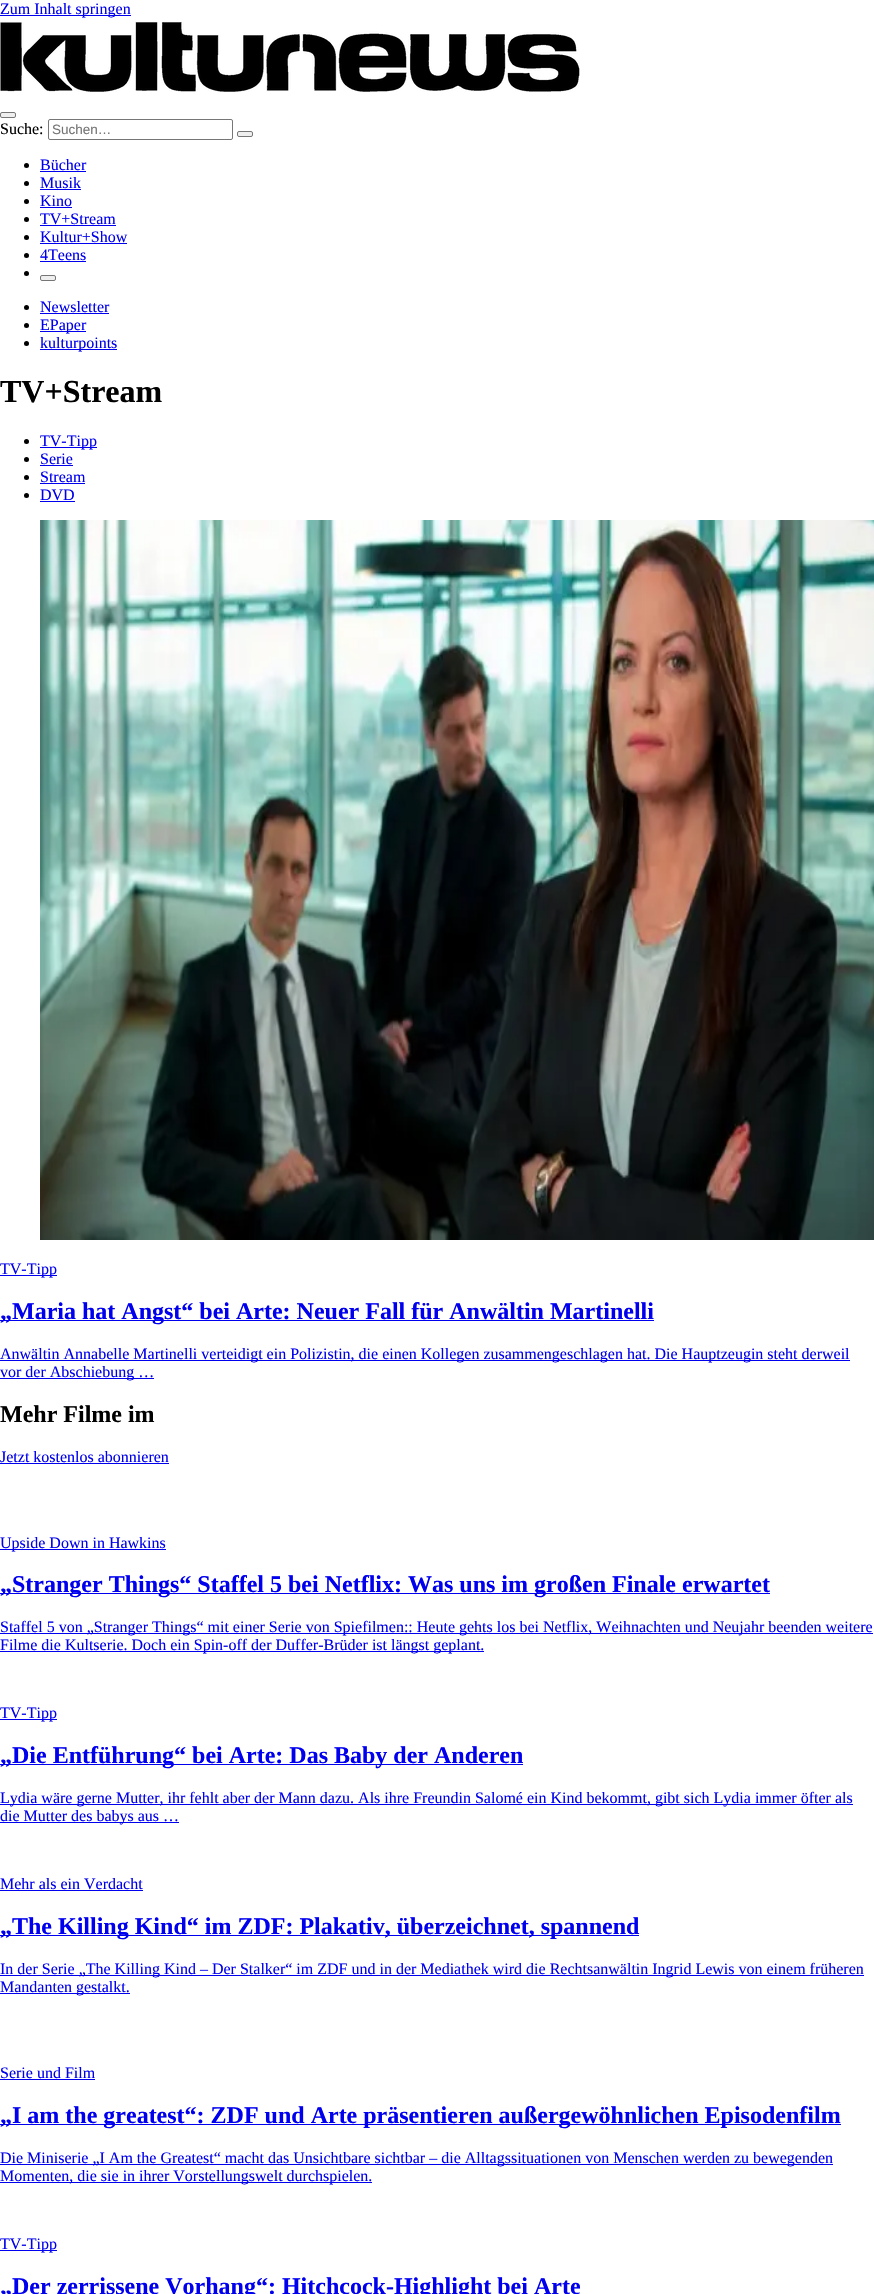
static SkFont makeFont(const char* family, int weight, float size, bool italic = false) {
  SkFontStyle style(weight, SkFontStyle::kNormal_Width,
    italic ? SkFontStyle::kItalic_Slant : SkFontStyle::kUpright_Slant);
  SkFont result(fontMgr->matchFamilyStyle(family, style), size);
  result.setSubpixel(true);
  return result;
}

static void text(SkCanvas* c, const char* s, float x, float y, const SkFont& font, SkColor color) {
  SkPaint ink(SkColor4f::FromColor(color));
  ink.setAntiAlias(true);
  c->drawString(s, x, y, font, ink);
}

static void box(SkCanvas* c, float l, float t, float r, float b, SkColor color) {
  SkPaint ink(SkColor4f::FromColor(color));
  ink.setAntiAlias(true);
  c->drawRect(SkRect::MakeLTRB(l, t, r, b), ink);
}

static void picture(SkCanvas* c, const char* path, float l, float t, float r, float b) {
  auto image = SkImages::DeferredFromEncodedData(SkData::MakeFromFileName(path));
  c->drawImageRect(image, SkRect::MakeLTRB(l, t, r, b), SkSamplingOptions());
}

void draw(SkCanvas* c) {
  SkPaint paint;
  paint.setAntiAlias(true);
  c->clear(0xffffffff);
  box(c, 0, 15, 131, 16, 0xff0000ee);
  SkFont face1 = makeFont("Liberation Serif", 400, 16);
  text(c, "Zum Inhalt springen", 0, 14, face1, 0xff0000ee);
  picture(c, "img_01.png", 0, 22, 580, 92);
  paint.setColor(0xffefefef);
  c->drawRoundRect(SkRect::MakeLTRB(0.5f, 112.5f, 15.5f, 117.5f), 1.5f, 1.5f, paint);
  paint.setStyle(SkPaint::kStroke_Style);
  paint.setStrokeWidth(1);
  paint.setColor(0xff767676);
  c->drawRoundRect(SkRect::MakeLTRB(0.5f, 112.5f, 15.5f, 117.5f), 1.5f, 1.5f, paint);
  text(c, "Suche:", 0, 134, face1, 0xff000000);
  c->drawRoundRect(SkRect::MakeLTRB(48.5f, 119.5f, 232.5f, 139.5f), 1.5f, 1.5f, paint);
  SkFont face2 = makeFont("Liberation Sans", 400, 13.5f);
  text(c, "Suchen…", 52, 134, face2, 0xff757575);
  paint.setStyle(SkPaint::kFill_Style);
  paint.setColor(0xffefefef);
  c->drawRoundRect(SkRect::MakeLTRB(237.5f, 131.5f, 252.5f, 136.5f), 1.5f, 1.5f, paint);
  paint.setStyle(SkPaint::kStroke_Style);
  paint.setColor(0xff767676);
  c->drawRoundRect(SkRect::MakeLTRB(237.5f, 131.5f, 252.5f, 136.5f), 1.5f, 1.5f, paint);
  paint.setStyle(SkPaint::kFill_Style);
  paint.setColor(0xff000000);
  c->drawCircle(26.5f, 165.5f, 2.5f, paint);
  text(c, "Bücher", 40, 170, face1, 0xff0000ee);
  box(c, 40, 171, 86, 172, 0xff0000ee);
  c->drawCircle(26.5f, 183.5f, 2.5f, paint);
  text(c, "Musik", 40, 188, face1, 0xff0000ee);
  box(c, 40, 189, 81, 190, 0xff0000ee);
  c->drawCircle(26.5f, 201.5f, 2.5f, paint);
  text(c, "Kino", 40, 206, face1, 0xff0000ee);
  box(c, 40, 207, 72, 208, 0xff0000ee);
  c->drawCircle(26.5f, 219.5f, 2.5f, paint);
  text(c, "TV+Stream", 40, 224, face1, 0xff0000ee);
  box(c, 40, 225, 116, 226, 0xff0000ee);
  c->drawCircle(26.5f, 237.5f, 2.5f, paint);
  text(c, "Kultur+Show", 40, 242, face1, 0xff0000ee);
  box(c, 40, 243, 127, 244, 0xff0000ee);
  c->drawCircle(26.5f, 255.5f, 2.5f, paint);
  text(c, "4Teens", 40, 260, face1, 0xff0000ee);
  box(c, 40, 261, 86, 262, 0xff0000ee);
  c->drawCircle(26.5f, 273.5f, 2.5f, paint);
  paint.setColor(0xffefefef);
  c->drawRoundRect(SkRect::MakeLTRB(40.5f, 275.5f, 55.5f, 280.5f), 1.5f, 1.5f, paint);
  paint.setStyle(SkPaint::kStroke_Style);
  paint.setColor(0xff767676);
  c->drawRoundRect(SkRect::MakeLTRB(40.5f, 275.5f, 55.5f, 280.5f), 1.5f, 1.5f, paint);
  paint.setStyle(SkPaint::kFill_Style);
  paint.setColor(0xff000000);
  c->drawCircle(26.5f, 307.5f, 2.5f, paint);
  text(c, "Newsletter", 40, 312, face1, 0xff0000ee);
  box(c, 40, 313, 109, 314, 0xff0000ee);
  c->drawCircle(26.5f, 325.5f, 2.5f, paint);
  box(c, 40, 331, 86, 332, 0xff0000ee);
  text(c, "EPaper", 40, 330, face1, 0xff0000ee);
  c->drawCircle(26.5f, 343.5f, 2.5f, paint);
  box(c, 40, 349, 117, 350, 0xff0000ee);
  text(c, "kulturpoints", 40, 348, face1, 0xff0000ee);
  SkFont face3 = makeFont("Liberation Serif", 700, 32);
  text(c, "TV+Stream", 0, 402, face3, 0xff000000);
  c->drawCircle(26.5f, 441.5f, 2.5f, paint);
  box(c, 40, 447, 97, 448, 0xff0000ee);
  text(c, "TV-Tipp", 40, 446, face1, 0xff0000ee);
  c->drawCircle(26.5f, 459.5f, 2.5f, paint);
  text(c, "Serie", 40, 464, face1, 0xff0000ee);
  box(c, 40, 465, 73, 466, 0xff0000ee);
  c->drawCircle(26.5f, 477.5f, 2.5f, paint);
  text(c, "Stream", 40, 482, face1, 0xff0000ee);
  box(c, 40, 483, 85, 484, 0xff0000ee);
  c->drawCircle(26.5f, 495.5f, 2.5f, paint);
  text(c, "DVD", 40, 500, face1, 0xff0000ee);
  box(c, 40, 501, 75, 502, 0xff0000ee);
  picture(c, "img_02.png", 40, 520, 874, 1240);
  box(c, 0, 1275, 57, 1276, 0xff0000ee);
  text(c, "TV-Tipp", 0, 1274, face1, 0xff0000ee);
  box(c, 0, 1320, 654, 1321, 0xff0000ee);
  SkFont face4 = makeFont("Liberation Serif", 700, 24);
  text(c, "„Maria hat Angst“ bei Arte: Neuer Fall für Anwältin Martinelli", 0, 1319, face4, 0xff0000ee);
  box(c, 0, 1360, 850, 1361, 0xff0000ee);
  text(c, "Anwältin Annabelle Martinelli verteidigt ein Polizistin, die einen Kollegen zusammengeschlagen hat. Die Hauptzeugin steht derweil", 0, 1359, face1, 0xff0000ee);
  box(c, 0, 1378, 154, 1379, 0xff0000ee);
  text(c, "vor der Abschiebung …", 0, 1377, face1, 0xff0000ee);
  text(c, "Mehr Filme im", 0, 1422, face4, 0xff000000);
  text(c, "Jetzt kostenlos abonnieren", 0, 1462, face1, 0xff0000ee);
  box(c, 0, 1463, 169, 1464, 0xff0000ee);
  box(c, 0, 1549, 166, 1550, 0xff0000ee);
  text(c, "Upside Down in Hawkins", 0, 1548, face1, 0xff0000ee);
  box(c, 0, 1593, 770, 1594, 0xff0000ee);
  text(c, "„Stranger Things“ Staffel 5 bei Netflix: Was uns im großen Finale erwartet", 0, 1592, face4, 0xff0000ee);
  box(c, 0, 1633, 873, 1634, 0xff0000ee);
  text(c, "Staffel 5 von „Stranger Things“ mit einer Serie von Spiefilmen:: Heute gehts los bei Netflix, Weihnachten und Neujahr beenden weitere", 0, 1632, face1, 0xff0000ee);
  box(c, 0, 1651, 484, 1652, 0xff0000ee);
  text(c, "Filme die Kultserie. Doch ein Spin-off der Duffer-Brüder ist längst geplant.", 0, 1650, face1, 0xff0000ee);
  box(c, 0, 1719, 57, 1720, 0xff0000ee);
  text(c, "TV-Tipp", 0, 1718, face1, 0xff0000ee);
  box(c, 0, 1764, 523, 1765, 0xff0000ee);
  text(c, "„Die Entführung“ bei Arte: Das Baby der Anderen", 0, 1763, face4, 0xff0000ee);
  box(c, 0, 1804, 853, 1805, 0xff0000ee);
  text(c, "Lydia wäre gerne Mutter, ihr fehlt aber der Mann dazu. Als ihre Freundin Salomé ein Kind bekommt, gibt sich Lydia immer öfter als", 0, 1803, face1, 0xff0000ee);
  box(c, 0, 1822, 179, 1823, 0xff0000ee);
  text(c, "die Mutter des babys aus …", 0, 1821, face1, 0xff0000ee);
  text(c, "Mehr als ein Verdacht", 0, 1889, face1, 0xff0000ee);
  box(c, 0, 1890, 143, 1891, 0xff0000ee);
  box(c, 0, 1935, 639, 1936, 0xff0000ee);
  text(c, "„The Killing Kind“ im ZDF: Plakativ, überzeichnet, spannend", 0, 1934, face4, 0xff0000ee);
  box(c, 0, 1975, 864, 1976, 0xff0000ee);
  text(c, "In der Serie „The Killing Kind – Der Stalker“ im ZDF und in der Mediathek wird die Rechtsanwältin Ingrid Lewis von einem früheren", 0, 1974, face1, 0xff0000ee);
  box(c, 0, 1993, 130, 1994, 0xff0000ee);
  text(c, "Mandanten gestalkt.", 0, 1992, face1, 0xff0000ee);
  text(c, "Serie und Film", 0, 2078, face1, 0xff0000ee);
  box(c, 0, 2079, 95, 2080, 0xff0000ee);
  box(c, 0, 2124, 841, 2125, 0xff0000ee);
  text(c, "„I am the greatest“: ZDF und Arte präsentieren außergewöhnlichen Episodenfilm", 0, 2123, face4, 0xff0000ee);
  box(c, 0, 2164, 833, 2165, 0xff0000ee);
  text(c, "Die Miniserie „I Am the Greatest“ macht das Unsichtbare sichtbar – die Alltagssituationen von Menschen werden zu bewegenden", 0, 2163, face1, 0xff0000ee);
  box(c, 0, 2182, 372, 2183, 0xff0000ee);
  text(c, "Momenten, die sie in ihrer Vorstellungswelt durchspielen.", 0, 2181, face1, 0xff0000ee);
  box(c, 0, 2250, 57, 2251, 0xff0000ee);
  text(c, "TV-Tipp", 0, 2249, face1, 0xff0000ee);
  text(c, "„Der zerrissene Vorhang“: Hitchcock-Highlight bei Arte", 0, 2294, face4, 0xff0000ee);
}
